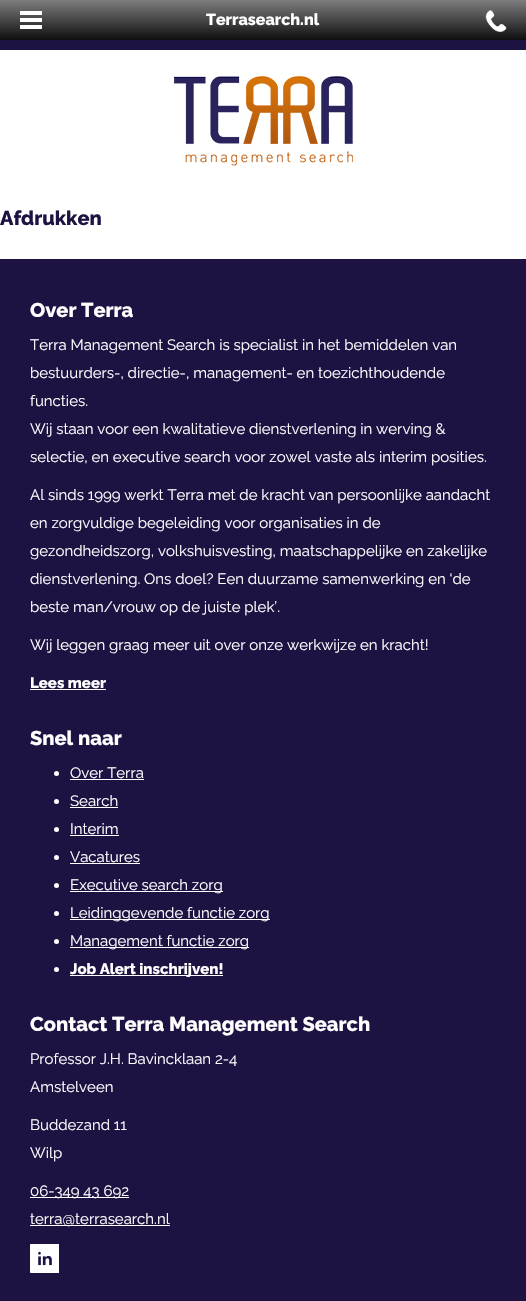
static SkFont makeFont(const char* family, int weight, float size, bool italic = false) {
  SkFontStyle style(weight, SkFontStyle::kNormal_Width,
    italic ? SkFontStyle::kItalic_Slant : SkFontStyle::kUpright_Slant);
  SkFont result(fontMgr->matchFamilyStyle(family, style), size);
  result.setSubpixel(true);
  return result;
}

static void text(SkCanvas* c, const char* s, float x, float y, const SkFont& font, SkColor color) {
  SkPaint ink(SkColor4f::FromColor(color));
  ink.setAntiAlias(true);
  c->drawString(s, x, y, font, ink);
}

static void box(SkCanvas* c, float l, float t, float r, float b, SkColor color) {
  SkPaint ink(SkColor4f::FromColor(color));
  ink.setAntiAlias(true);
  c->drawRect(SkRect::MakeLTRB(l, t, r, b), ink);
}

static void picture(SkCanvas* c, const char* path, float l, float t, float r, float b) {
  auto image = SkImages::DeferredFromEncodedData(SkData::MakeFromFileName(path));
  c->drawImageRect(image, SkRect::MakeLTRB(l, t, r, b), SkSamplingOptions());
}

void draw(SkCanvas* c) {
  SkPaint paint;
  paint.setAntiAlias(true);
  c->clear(0xffffffff);
  {
    const SkColor colors[] = {0xff7d7e7d, 0xff0e0e0e};
    const float stops[] = {0, 1};
    const SkPoint ends[] = {{263, 0}, {263, 40}};
    paint.setShader(SkGradientShader::MakeLinear(ends, colors, stops, 2, SkTileMode::kClamp));
    paint.setAlpha(255);
  }
  c->drawRect(SkRect::MakeLTRB(0, 0, 526, 40), paint);
  picture(c, "img_01.png", 20, 11, 42, 29);
  SkFont face1 = makeFont("Raleway", 100, 16);
  text(c, "Terrasearch.nl", 206, 25, face1, 0xffffffff);
  picture(c, "img_02.png", 485, 10, 507, 32);
  box(c, 0, 40, 526, 50, 0xff1d1242);
  picture(c, "img_03.png", 174, 72, 353, 166);
  SkFont face2 = makeFont("Raleway", 100, 20);
  text(c, "Afdrukken", 0, 225, face2, 0xff1d1242);
  box(c, 0, 259, 526, 1301, 0xff1d1242);
  text(c, "Over Terra", 30, 317, face2, 0xffffffff);
  SkFont face3 = makeFont("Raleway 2", 100, 15);
  text(c, "Terra Management Search is specialist in het bemiddelen van", 30, 350, face3, 0xffffffff);
  text(c, "bestuurders-, directie-, management- en toezichthoudende", 30, 378, face3, 0xffffffff);
  text(c, "functies.", 30, 406, face3, 0xffffffff);
  text(c, "Wij staan voor een kwalitatieve dienstverlening in werving &", 30, 434, face3, 0xffffffff);
  text(c, "selectie, en executive search voor zowel vaste als interim posities.", 30, 462, face3, 0xffffffff);
  text(c, "Al sinds 1999 werkt Terra met de kracht van persoonlijke aandacht", 30, 500, face3, 0xffffffff);
  text(c, "en zorgvuldige begeleiding voor organisaties in de", 30, 528, face3, 0xffffffff);
  text(c, "gezondheidszorg, volkshuisvesting, maatschappelijke en zakelijke", 30, 556, face3, 0xffffffff);
  text(c, "dienstverlening. Ons doel? Een duurzame samenwerking en ‘de", 30, 584, face3, 0xffffffff);
  text(c, "beste man/vrouw op de juiste plek’.", 30, 612, face3, 0xffffffff);
  text(c, "Wij leggen graag meer uit over onze werkwijze en kracht!", 30, 650, face3, 0xffffffff);
  SkFont face4 = makeFont("Raleway", 100, 15);
  text(c, "Lees meer", 30, 688, face4, 0xffffffff);
  box(c, 30, 689, 106, 690, 0xffffffff);
  text(c, "Snel naar", 30, 745, face2, 0xffffffff);
  paint.setShader(nullptr);
  paint.setColor(0xffffffff);
  c->drawCircle(56.5f, 773.5f, 2.5f, paint);
  text(c, "Over Terra", 70, 778, face3, 0xffffffff);
  box(c, 70, 779, 144, 780, 0xffffffff);
  c->drawCircle(56.5f, 801.5f, 2.5f, paint);
  text(c, "Search", 70, 806, face3, 0xffffffff);
  box(c, 70, 807, 118, 808, 0xffffffff);
  c->drawCircle(56.5f, 829.5f, 2.5f, paint);
  text(c, "Interim", 70, 834, face3, 0xffffffff);
  box(c, 70, 835, 119, 836, 0xffffffff);
  c->drawCircle(56.5f, 857.5f, 2.5f, paint);
  text(c, "Vacatures", 70, 862, face3, 0xffffffff);
  box(c, 70, 863, 140, 864, 0xffffffff);
  c->drawCircle(56.5f, 885.5f, 2.5f, paint);
  box(c, 70, 891, 223, 892, 0xffffffff);
  text(c, "Executive search zorg", 70, 890, face3, 0xffffffff);
  c->drawCircle(56.5f, 913.5f, 2.5f, paint);
  box(c, 70, 919, 270, 920, 0xffffffff);
  text(c, "Leidinggevende functie zorg", 70, 918, face3, 0xffffffff);
  c->drawCircle(56.5f, 941.5f, 2.5f, paint);
  box(c, 70, 947, 249, 948, 0xffffffff);
  text(c, "Management functie zorg", 70, 946, face3, 0xffffffff);
  c->drawCircle(56.5f, 969.5f, 2.5f, paint);
  box(c, 70, 975, 223, 976, 0xffffffff);
  text(c, "Job Alert inschrijven!", 70, 974, face4, 0xffffffff);
  text(c, "Contact Terra Management Search", 30, 1031, face2, 0xffffffff);
  text(c, "Professor J.H. Bavincklaan 2-4", 30, 1064, face3, 0xffffffff);
  text(c, "Amstelveen", 30, 1092, face3, 0xffffffff);
  text(c, "Buddezand 11", 30, 1130, face3, 0xffffffff);
  text(c, "Wilp", 30, 1158, face3, 0xffffffff);
  box(c, 30, 1197, 129, 1198, 0xffffffff);
  text(c, "06-349 43 692", 30, 1196, face3, 0xffffffff);
  box(c, 30, 1225, 170, 1226, 0xffffffff);
  text(c, "terra@terrasearch.nl", 30, 1224, face3, 0xffffffff);
  picture(c, "img_04.png", 30, 1244, 59, 1273);
}
